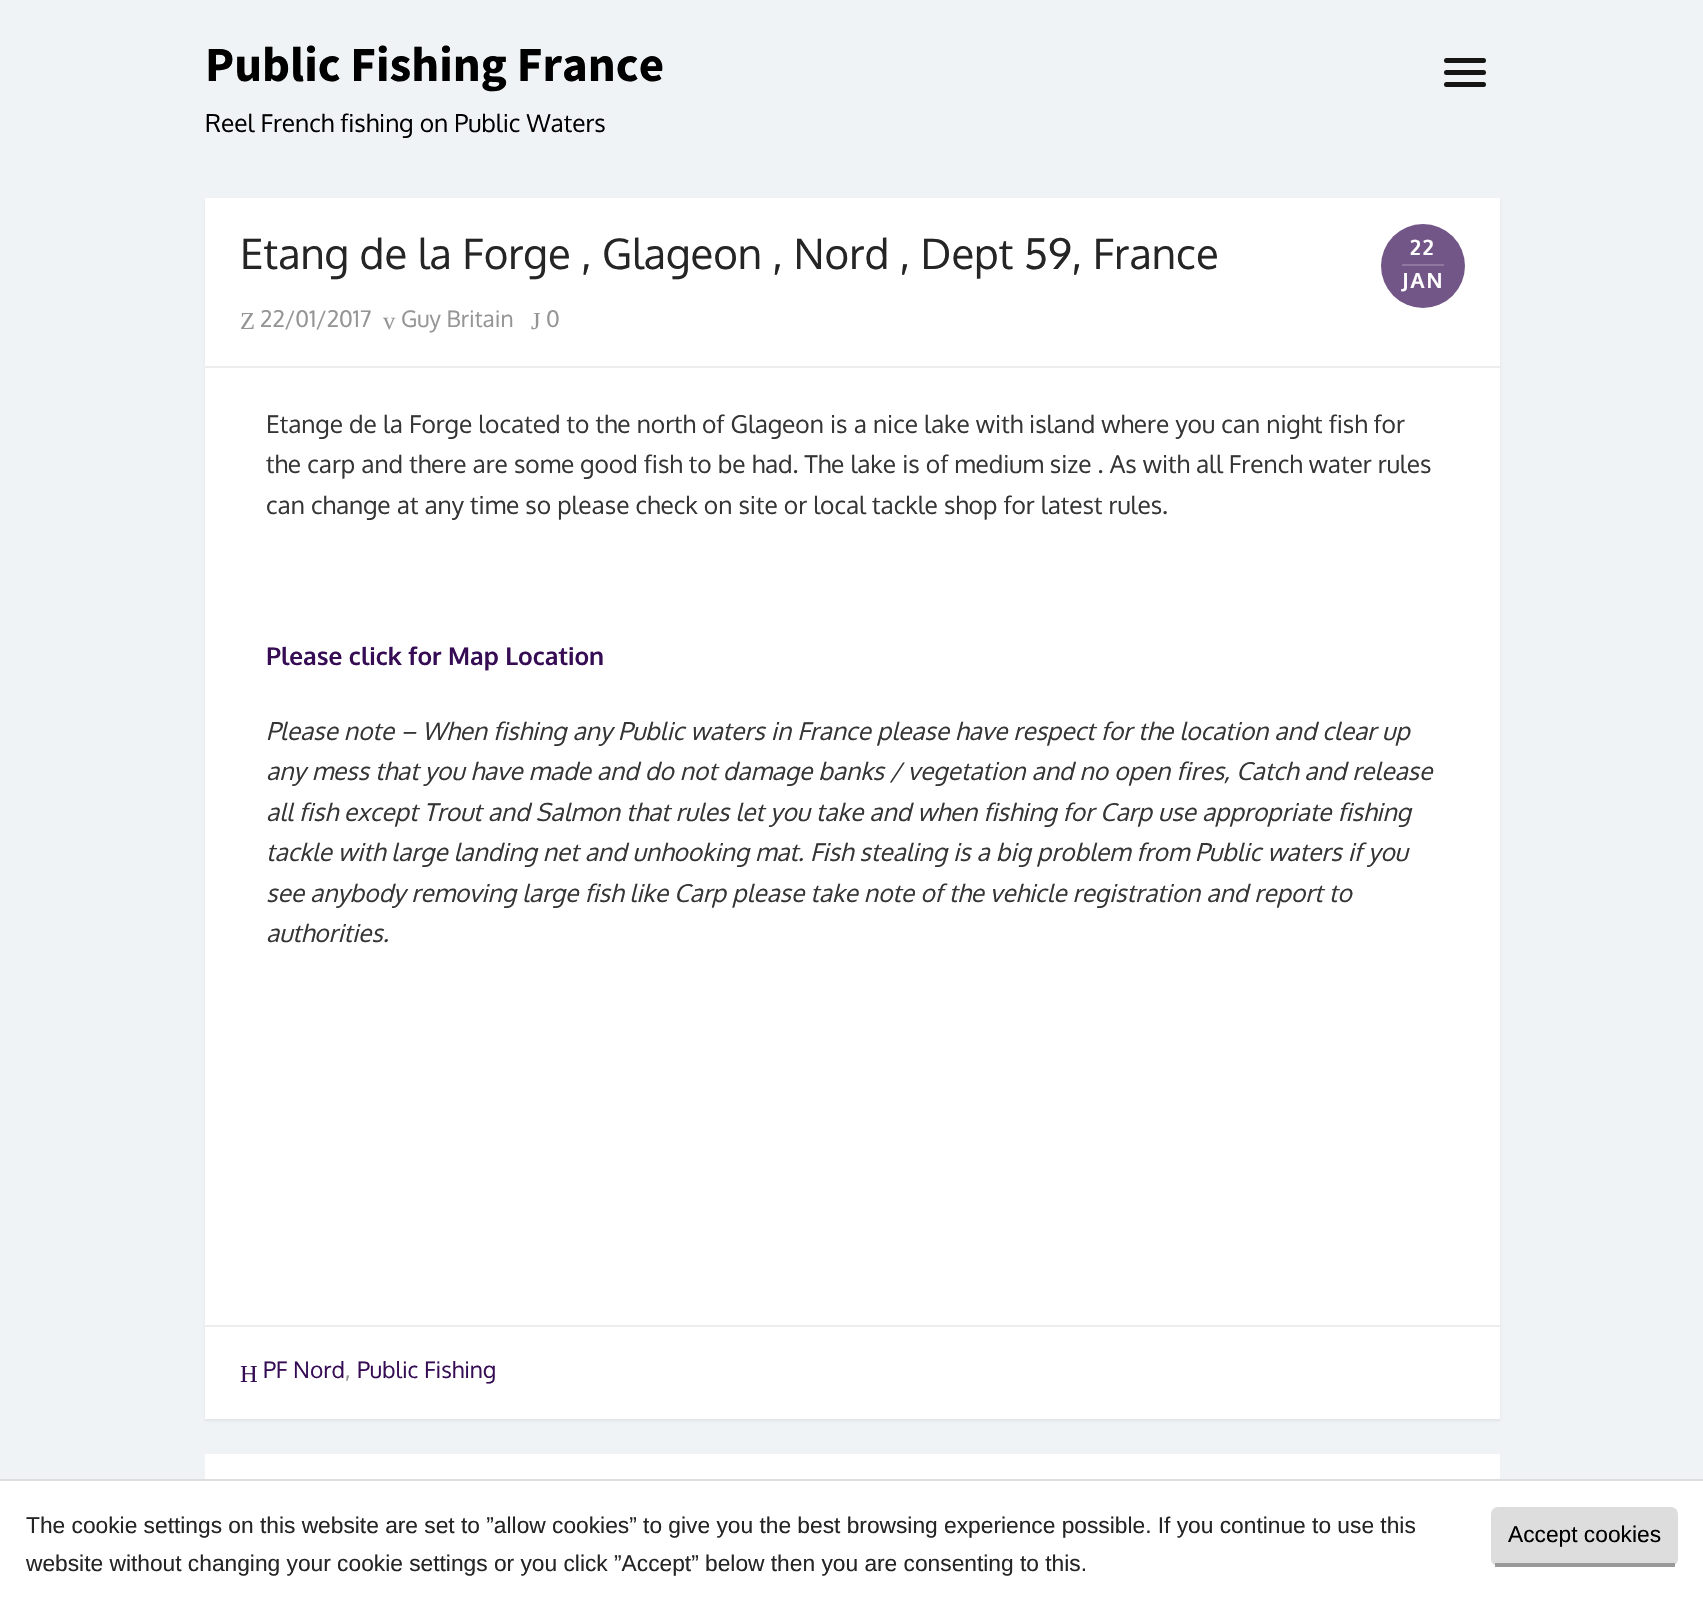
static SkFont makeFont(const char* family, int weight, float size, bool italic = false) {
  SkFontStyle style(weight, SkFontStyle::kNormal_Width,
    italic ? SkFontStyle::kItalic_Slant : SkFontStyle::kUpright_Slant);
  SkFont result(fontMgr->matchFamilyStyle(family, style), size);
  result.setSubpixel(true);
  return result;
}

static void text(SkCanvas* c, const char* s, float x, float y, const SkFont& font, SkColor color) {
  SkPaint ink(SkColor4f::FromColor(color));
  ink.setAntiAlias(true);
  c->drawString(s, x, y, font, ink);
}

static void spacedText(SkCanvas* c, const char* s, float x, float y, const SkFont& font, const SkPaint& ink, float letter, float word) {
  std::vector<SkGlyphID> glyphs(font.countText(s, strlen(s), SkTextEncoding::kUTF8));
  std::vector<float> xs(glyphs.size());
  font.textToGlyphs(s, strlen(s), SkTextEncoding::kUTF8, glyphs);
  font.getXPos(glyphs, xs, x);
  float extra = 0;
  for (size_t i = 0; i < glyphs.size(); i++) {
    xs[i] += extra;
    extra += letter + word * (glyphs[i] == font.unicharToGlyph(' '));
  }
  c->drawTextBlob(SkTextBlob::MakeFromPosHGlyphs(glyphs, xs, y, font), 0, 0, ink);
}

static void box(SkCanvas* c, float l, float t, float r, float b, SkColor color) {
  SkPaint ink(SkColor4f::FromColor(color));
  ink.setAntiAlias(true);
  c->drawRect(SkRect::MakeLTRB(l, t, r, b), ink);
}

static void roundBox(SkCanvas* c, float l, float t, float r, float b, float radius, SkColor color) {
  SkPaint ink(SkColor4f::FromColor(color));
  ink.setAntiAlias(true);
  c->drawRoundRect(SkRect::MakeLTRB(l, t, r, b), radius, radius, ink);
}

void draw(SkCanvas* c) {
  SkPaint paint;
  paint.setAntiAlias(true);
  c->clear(0xfff0f3f5);
  SkFont face1 = makeFont("Source Sans Pro", 700, 49);
  text(c, "Public Fishing France", 205, 81, face1, 0xff000000);
  SkFont face2 = makeFont("Oxygen", 400, 24.5f);
  text(c, "Reel French fishing on Public Waters", 205, 132, face2, 0xff000000);
  roundBox(c, 1444, 70, 1486, 75, 2.5f, 0xff151515);
  roundBox(c, 1444, 58, 1486, 63, 2.5f, 0xff151515);
  roundBox(c, 1444, 82, 1486, 87, 2.5f, 0xff151515);
  paint.setColor(0x0f000000);
  paint.setMaskFilter(SkMaskFilter::MakeBlur(kNormal_SkBlurStyle, 1));
  c->drawRect(SkRect::MakeLTRB(205, 200, 1500, 1421), paint);
  paint.setMaskFilter(nullptr);
  box(c, 205, 198, 1500, 1419, 0xffffffff);
  box(c, 205, 366, 1500, 368, 0xffededed);
  SkFont face3 = makeFont("Oxygen", 400, 42);
  text(c, "Etang de la Forge , Glageon , Nord , Dept 59, France", 240, 269, face3, 0xff252525);
  paint.setColor(0xff725687);
  c->drawCircle(1423, 266, 42, paint);
  SkFont face4 = makeFont("Oxygen", 700, 21);
  paint.setColor(0xffffffff);
  spacedText(c, "22", 1410, 255, face4, paint, 2, 0);
  box(c, 1402, 264, 1444, 266, 0xff8e789f);
  spacedText(c, "JAN", 1402, 288, face4, paint, 2, 0);
  SkFont face5 = makeFont("Liberation Serif", 400, 24.5f);
  text(c, "Z", 240, 329, face5, 0xff959595);
  SkFont face6 = makeFont("Oxygen", 400, 22.75f);
  text(c, "22/01/2017", 260, 327, face6, 0xff959595);
  text(c, "v", 383, 329, face5, 0xff959595);
  text(c, "Guy Britain", 401, 327, face6, 0xff959595);
  text(c, "J", 531, 329, face5, 0xff959595);
  text(c, "0", 546, 327, face6, 0xff959595);
  text(c, "Etange de la Forge located to the north of Glageon is a nice lake with island where you can night fish for", 266, 433, face2, 0xff353535);
  text(c, "the carp and there are some good fish to be had. The lake is of medium size . As with all French water rules", 266, 473, face2, 0xff353535);
  text(c, "can change at any time so please check on site or local tackle shop for latest rules.", 266, 514, face2, 0xff353535);
  SkFont face7 = makeFont("Oxygen", 700, 24.5f);
  text(c, "Please click for Map Location", 266, 665, face7, 0xff360d54);
  SkFont face8 = makeFont("Oxygen", 400, 24.5f, true);
  text(c, "Please note – When fishing any Public waters in France please have respect for the location and clear up", 266, 740, face8, 0xff353535);
  text(c, "any mess that you have made and do not damage banks / vegetation and no open fires, Catch and release", 266, 780, face8, 0xff353535);
  text(c, "all fish except Trout and Salmon that rules let you take and when fishing for Carp use appropriate fishing", 266, 821, face8, 0xff353535);
  text(c, "tackle with large landing net and unhooking mat. Fish stealing is a big problem from Public waters if you", 266, 861, face8, 0xff353535);
  text(c, "see anybody removing large fish like Carp please take note of the vehicle registration and report to", 266, 902, face8, 0xff353535);
  text(c, "authorities.", 266, 942, face8, 0xff353535);
  box(c, 205, 1325, 1500, 1327, 0xffededed);
  text(c, "H", 240, 1382, face5, 0xff360d54);
  text(c, "PF Nord", 263, 1378, face6, 0xff360d54);
  text(c, ",", 345, 1378, face6, 0xff959595);
  text(c, "Public Fishing", 357, 1378, face6, 0xff360d54);
  box(c, 205, 1454, 1500, 1479, 0xffffffff);
  box(c, 0, 1481, 1703, 1607, 0xffffffff);
  box(c, 0, 1479, 1703, 1481, 0xffdddddd);
  SkFont face9 = makeFont("Liberation Sans", 400, 22.75f);
  text(c, "The cookie settings on this website are set to ”allow cookies” to give you the best browsing experience possible. If you continue to use this", 26, 1533, face9, 0xff252525);
  roundBox(c, 1491, 1507, 1678, 1566, 7, 0xffdddddd);
  box(c, 1495, 1563, 1675, 1567, 0xff999999);
  text(c, "Accept cookies", 1508, 1542, face9, 0xff000000);
  text(c, "website without changing your cookie settings or you click ”Accept” below then you are consenting to this.", 26, 1571, face9, 0xff252525);
}
